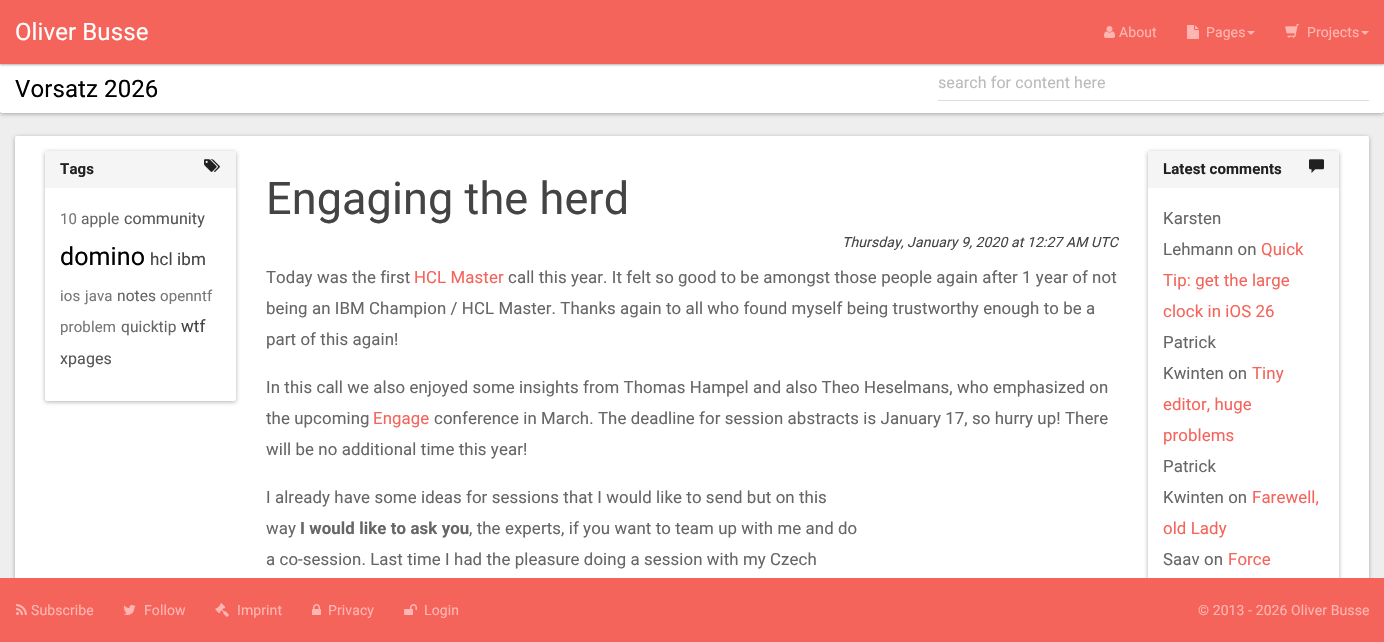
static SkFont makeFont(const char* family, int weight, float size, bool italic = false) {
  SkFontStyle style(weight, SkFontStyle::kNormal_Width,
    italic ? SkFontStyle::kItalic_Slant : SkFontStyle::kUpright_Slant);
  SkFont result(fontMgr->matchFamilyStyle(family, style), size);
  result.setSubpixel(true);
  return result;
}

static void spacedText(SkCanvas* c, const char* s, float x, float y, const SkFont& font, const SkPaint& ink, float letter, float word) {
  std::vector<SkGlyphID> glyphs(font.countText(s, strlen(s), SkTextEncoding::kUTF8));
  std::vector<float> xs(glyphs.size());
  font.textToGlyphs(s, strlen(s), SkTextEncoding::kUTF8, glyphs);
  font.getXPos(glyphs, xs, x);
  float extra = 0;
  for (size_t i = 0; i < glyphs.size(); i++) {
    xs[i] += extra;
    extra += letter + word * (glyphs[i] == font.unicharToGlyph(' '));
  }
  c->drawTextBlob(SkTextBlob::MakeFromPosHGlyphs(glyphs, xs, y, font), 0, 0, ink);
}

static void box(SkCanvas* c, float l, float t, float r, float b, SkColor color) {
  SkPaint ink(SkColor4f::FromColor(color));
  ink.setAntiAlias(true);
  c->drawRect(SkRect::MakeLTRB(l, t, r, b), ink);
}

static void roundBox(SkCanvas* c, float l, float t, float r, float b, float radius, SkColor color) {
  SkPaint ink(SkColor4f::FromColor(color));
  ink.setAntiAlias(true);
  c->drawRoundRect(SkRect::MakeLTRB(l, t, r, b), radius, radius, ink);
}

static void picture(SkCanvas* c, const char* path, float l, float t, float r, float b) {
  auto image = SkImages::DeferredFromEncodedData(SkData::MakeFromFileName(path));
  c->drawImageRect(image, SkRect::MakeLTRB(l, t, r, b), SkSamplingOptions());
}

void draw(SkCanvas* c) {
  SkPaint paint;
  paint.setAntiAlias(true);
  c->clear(0xffeeeeee);
  paint.setColor(0x4d000000);
  paint.setMaskFilter(SkMaskFilter::MakeBlur(kNormal_SkBlurStyle, 2));
  c->drawRoundRect(SkRect::MakeLTRB(0, 1, 1384, 114), 2, 2, paint);
  paint.setMaskFilter(nullptr);
  roundBox(c, 0, 0, 1384, 113, 2, 0xffffffff);
  paint.setMaskFilter(SkMaskFilter::MakeBlur(kNormal_SkBlurStyle, 1));
  c->drawRect(SkRect::MakeLTRB(0, 1, 1384, 65), paint);
  paint.setMaskFilter(nullptr);
  box(c, 0, 0, 1384, 64, 0xfff5645b);
  SkFont face1 = makeFont("Roboto", 400, 24);
  paint.setColor(0xffffffff);
  spacedText(c, "Oliver Busse", 15, 40, face1, paint, 0.1f, 0);
  picture(c, "img_01.png", 1104, 26, 1115, 38);
  SkFont face2 = makeFont("Roboto", 400, 14);
  paint.setColor(0xffffb6b2);
  spacedText(c, "About", 1119, 37, face2, paint, 0.1f, 0);
  picture(c, "img_02.png", 1187, 25, 1199, 39);
  spacedText(c, "Pages", 1206, 37, face2, paint, 0.1f, 0);
  c->drawPath(SkPathBuilder().moveTo(1247, 31).lineTo(1255, 31).lineTo(1251, 35).close().detach(), paint);
  picture(c, "img_03.png", 1285, 24, 1299, 38);
  spacedText(c, "Projects", 1307, 37, face2, paint, 0.1f, 0);
  c->drawPath(SkPathBuilder().moveTo(1361, 31).lineTo(1369, 31).lineTo(1365, 35).close().detach(), paint);
  paint.setColor(0xff000000);
  spacedText(c, "Vorsatz 2026", 15, 97, face1, paint, 0.1f, 0);
  box(c, 938, 100, 1369, 101, 0xffdddddd);
  SkFont face3 = makeFont("Roboto", 400, 16);
  paint.setColor(0xffbbbbbb);
  spacedText(c, "search for content here", 938, 88, face3, paint, 0.1f, 0);
  paint.setColor(0x4d000000);
  paint.setMaskFilter(SkMaskFilter::MakeBlur(kNormal_SkBlurStyle, 2));
  c->drawRoundRect(SkRect::MakeLTRB(15, 137, 1369, 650), 2, 2, paint);
  paint.setMaskFilter(nullptr);
  roundBox(c, 15, 136, 1369, 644, 2, 0xffffffff);
  paint.setMaskFilter(SkMaskFilter::MakeBlur(kNormal_SkBlurStyle, 2));
  c->drawRoundRect(SkRect::MakeLTRB(45, 152, 236, 402), 2, 2, paint);
  paint.setMaskFilter(nullptr);
  roundBox(c, 45, 151, 236, 401, 2, 0xffffffff);
  paint.setColor(0xfff5f5f5);
  c->drawPath(SkPathBuilder().moveTo(47, 151).lineTo(234, 151).cubicTo(235, 151, 236, 152, 236, 153).lineTo(236, 188).lineTo(45, 188).lineTo(45, 153).cubicTo(45, 152, 46, 151, 47, 151).close().detach(), paint);
  SkFont face4 = makeFont("Roboto", 700, 15);
  paint.setColor(0xff212121);
  spacedText(c, "Tags", 60, 174, face4, paint, 0.1f, 0);
  picture(c, "img_04.png", 204, 159, 220, 172);
  SkFont face5 = makeFont("Roboto", 400, 15);
  paint.setColor(0xff777777);
  spacedText(c, "10", 60, 224, face5, paint, 0.1f, 0);
  SkFont face6 = makeFont("Roboto", 400, 15.5f);
  paint.setColor(0xff666666);
  spacedText(c, "apple", 81, 224, face6, paint, 0.1f, 0);
  paint.setColor(0xff555555);
  spacedText(c, "community", 124, 224, face3, paint, 0.1f, 0);
  SkFont face7 = makeFont("Roboto", 400, 25);
  paint.setColor(0xff000000);
  spacedText(c, "domino", 60, 265, face7, paint, 0.1f, 0);
  SkFont face8 = makeFont("Roboto", 400, 17);
  paint.setColor(0xff444444);
  spacedText(c, "hcl ibm", 150, 265, face8, paint, 0.1f, 0);
  paint.setColor(0xff777777);
  spacedText(c, "ios", 60, 301, face5, paint, 0.1f, 0);
  spacedText(c, "java", 85, 301, face5, paint, 0.1f, 0);
  paint.setColor(0xff666666);
  spacedText(c, "notes", 117, 301, face6, paint, 0.1f, 0);
  paint.setColor(0xff777777);
  spacedText(c, "openntf", 160, 301, face5, paint, 0.1f, 0);
  spacedText(c, "problem", 60, 332, face5, paint, 0.1f, 0);
  paint.setColor(0xff666666);
  spacedText(c, "quicktip", 121, 332, face6, paint, 0.1f, 0);
  paint.setColor(0xff444444);
  spacedText(c, "wtf", 181, 332, face8, paint, 0.1f, 0);
  paint.setColor(0xff555555);
  spacedText(c, "xpages", 60, 364, face3, paint, 0.1f, 0);
  SkFont face9 = makeFont("Roboto", 400, 45);
  paint.setColor(0xff444444);
  spacedText(c, "Engaging the herd", 266, 214, face9, paint, 0.1f, 0);
  SkFont face10 = makeFont("Roboto", 400, 14, true);
  spacedText(c, "Thursday, January 9, 2020 at 12:27 AM UTC", 842, 247, face10, paint, 0.1f, 0);
  SkFont face11 = makeFont("Roboto", 400, 16.8f);
  paint.setColor(0xff666666);
  spacedText(c, "Today was the first", 266, 283, face11, paint, 0.1f, 0);
  paint.setColor(0xfff5645b);
  spacedText(c, "HCL Master", 414, 283, face11, paint, 0.1f, 0);
  paint.setColor(0xff666666);
  spacedText(c, "call this year. It felt so good to be amongst those people again after 1 year of not", 508, 283, face11, paint, 0.1f, 0);
  spacedText(c, "being an IBM Champion / HCL Master. Thanks again to all who found myself being trustworthy enough to be a", 266, 314, face11, paint, 0.1f, 0);
  spacedText(c, "part of this again!", 266, 345, face11, paint, 0.1f, 0);
  spacedText(c, "In this call we also enjoyed some insights from Thomas Hampel and also Theo Heselmans, who emphasized on", 266, 393, face11, paint, 0.1f, 0);
  spacedText(c, "the upcoming", 266, 424, face11, paint, 0.1f, 0);
  paint.setColor(0xfff5645b);
  spacedText(c, "Engage", 373, 424, face11, paint, 0.1f, 0);
  paint.setColor(0xff666666);
  spacedText(c, "conference in March. The deadline for session abstracts is January 17, so hurry up! There", 434, 424, face11, paint, 0.1f, 0);
  spacedText(c, "will be no additional time this year!", 266, 455, face11, paint, 0.1f, 0);
  spacedText(c, "I already have some ideas for sessions that I would like to send but on this", 266, 503, face11, paint, 0.1f, 0);
  spacedText(c, "way", 266, 534, face11, paint, 0.1f, 0);
  SkFont face12 = makeFont("Roboto", 700, 16.8f);
  spacedText(c, "I would like to ask you", 300, 534, face12, paint, 0.1f, 0);
  spacedText(c, ", the experts, if you want to team up with me and do", 469, 534, face11, paint, 0.1f, 0);
  spacedText(c, "a co-session. Last time I had the pleasure doing a session with my Czech", 266, 565, face11, paint, 0.1f, 0);
  paint.setColor(0x4d000000);
  paint.setMaskFilter(SkMaskFilter::MakeBlur(kNormal_SkBlurStyle, 2));
  c->drawRoundRect(SkRect::MakeLTRB(1148, 152, 1339, 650), 2, 2, paint);
  paint.setMaskFilter(nullptr);
  roundBox(c, 1148, 151, 1339, 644, 2, 0xffffffff);
  paint.setColor(0xfff5f5f5);
  c->drawPath(SkPathBuilder().moveTo(1150, 151).lineTo(1337, 151).cubicTo(1338, 151, 1339, 152, 1339, 153).lineTo(1339, 188).lineTo(1148, 188).lineTo(1148, 153).cubicTo(1148, 152, 1149, 151, 1150, 151).close().detach(), paint);
  paint.setColor(0xff212121);
  spacedText(c, "Latest comments", 1163, 174, face4, paint, 0.1f, 0);
  picture(c, "img_05.png", 1309, 159, 1324, 173);
  paint.setColor(0xff666666);
  spacedText(c, "Karsten", 1163, 224, face11, paint, 0.1f, 0);
  spacedText(c, "Lehmann on", 1163, 255, face11, paint, 0.1f, 0);
  paint.setColor(0xfff5645b);
  spacedText(c, "Quick", 1261, 255, face11, paint, 0.1f, 0);
  spacedText(c, "Tip: get the large", 1163, 286, face11, paint, 0.1f, 0);
  spacedText(c, "clock in iOS 26", 1163, 317, face11, paint, 0.1f, 0);
  paint.setColor(0xff666666);
  spacedText(c, "Patrick", 1163, 348, face11, paint, 0.1f, 0);
  spacedText(c, "Kwinten on", 1163, 379, face11, paint, 0.1f, 0);
  paint.setColor(0xfff5645b);
  spacedText(c, "Tiny", 1252, 379, face11, paint, 0.1f, 0);
  spacedText(c, "editor, huge", 1163, 410, face11, paint, 0.1f, 0);
  spacedText(c, "problems", 1163, 441, face11, paint, 0.1f, 0);
  paint.setColor(0xff666666);
  spacedText(c, "Patrick", 1163, 472, face11, paint, 0.1f, 0);
  spacedText(c, "Kwinten on", 1163, 503, face11, paint, 0.1f, 0);
  paint.setColor(0xfff5645b);
  spacedText(c, "Farewell,", 1252, 503, face11, paint, 0.1f, 0);
  spacedText(c, "old Lady", 1163, 534, face11, paint, 0.1f, 0);
  paint.setColor(0xff666666);
  spacedText(c, "Saav on", 1163, 565, face11, paint, 0.1f, 0);
  paint.setColor(0xfff5645b);
  spacedText(c, "Force", 1228, 565, face11, paint, 0.1f, 0);
  box(c, 0, 578, 1384, 642, 0xfff5645b);
  picture(c, "img_06.png", 16, 604, 27, 615);
  paint.setColor(0xffffb6b2);
  spacedText(c, "Subscribe", 31, 615, face2, paint, 0.1f, 0);
  picture(c, "img_07.png", 123, 605, 136, 615);
  spacedText(c, "Follow", 144, 615, face2, paint, 0.1f, 0);
  picture(c, "img_08.png", 215, 603, 229, 617);
  spacedText(c, "Imprint", 237, 615, face2, paint, 0.1f, 0);
  picture(c, "img_09.png", 312, 604, 321, 615);
  spacedText(c, "Privacy", 328, 615, face2, paint, 0.1f, 0);
  picture(c, "img_10.png", 404, 604, 417, 615);
  spacedText(c, "Login", 424, 615, face2, paint, 0.1f, 0);
  spacedText(c, "© 2013 - 2026 Oliver Busse", 1198, 615, face2, paint, 0.1f, 0);
}
